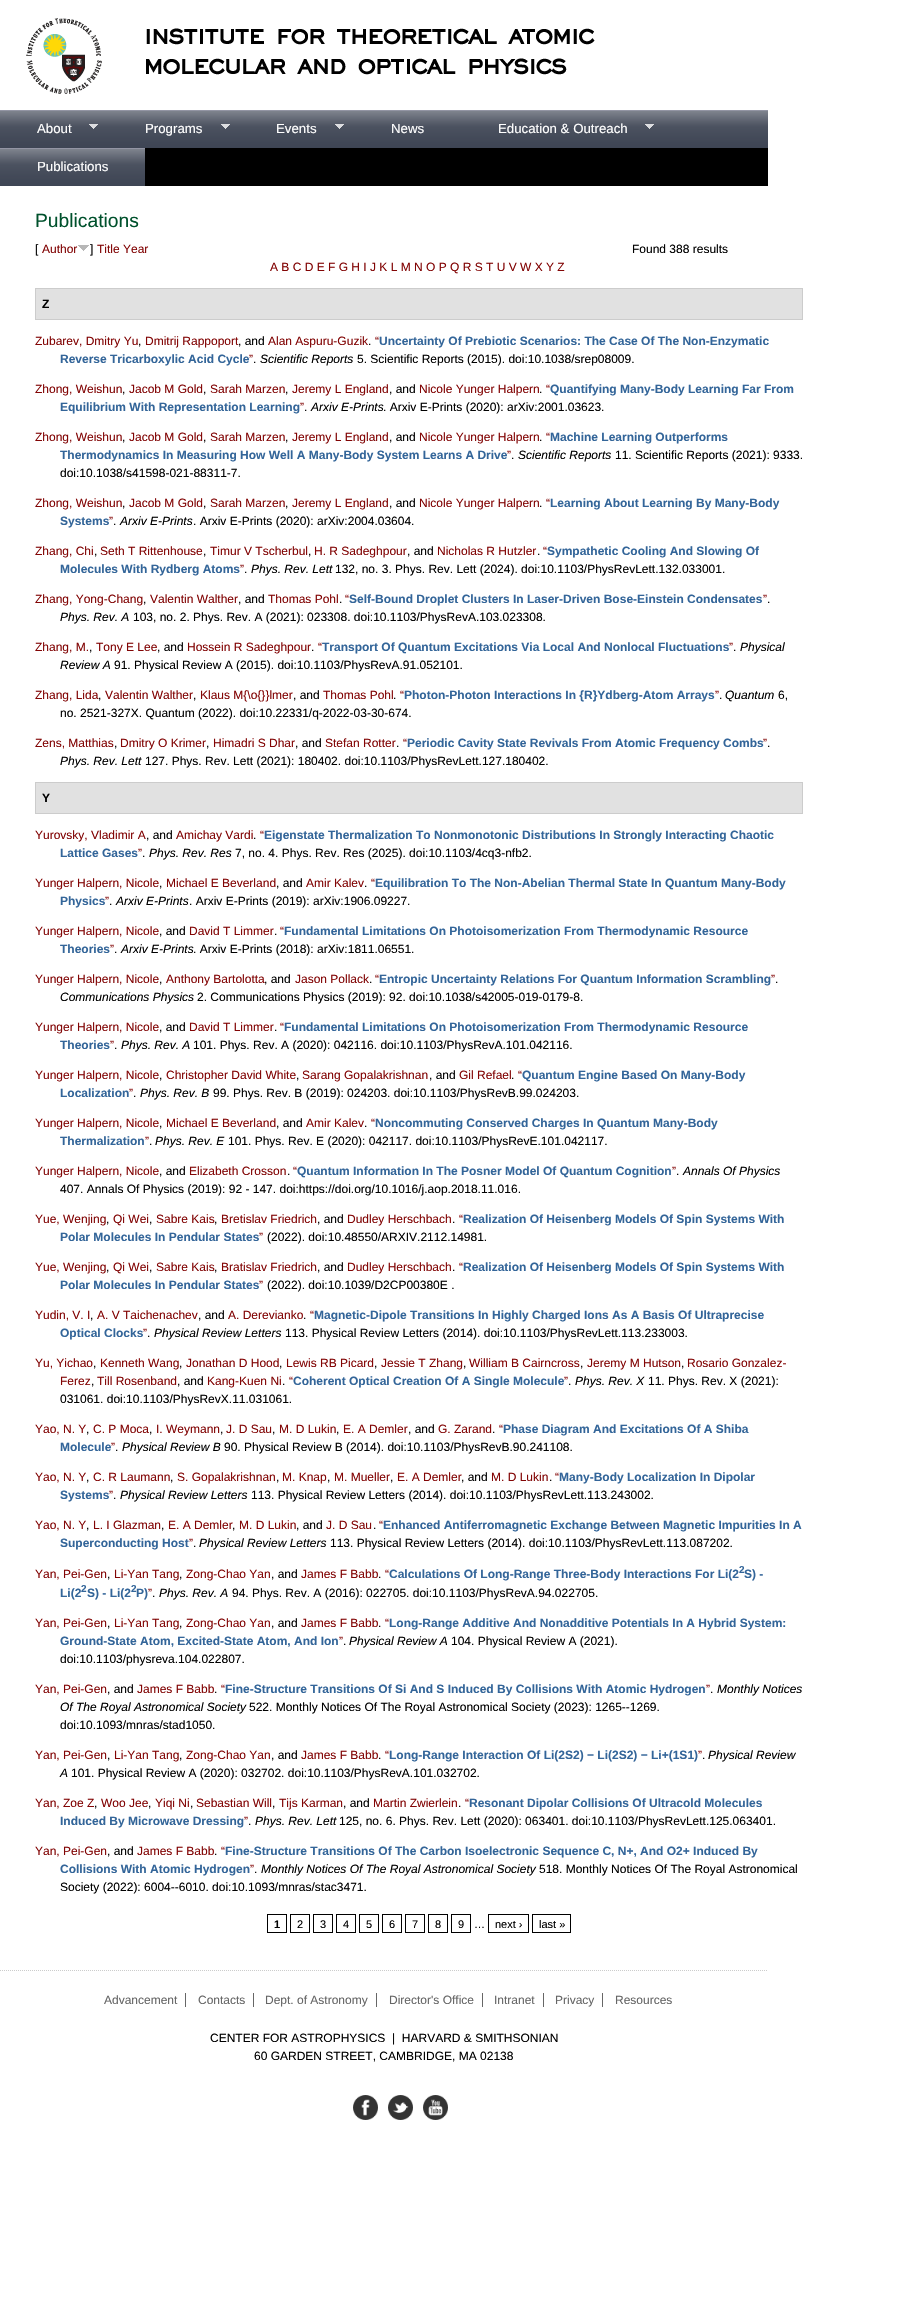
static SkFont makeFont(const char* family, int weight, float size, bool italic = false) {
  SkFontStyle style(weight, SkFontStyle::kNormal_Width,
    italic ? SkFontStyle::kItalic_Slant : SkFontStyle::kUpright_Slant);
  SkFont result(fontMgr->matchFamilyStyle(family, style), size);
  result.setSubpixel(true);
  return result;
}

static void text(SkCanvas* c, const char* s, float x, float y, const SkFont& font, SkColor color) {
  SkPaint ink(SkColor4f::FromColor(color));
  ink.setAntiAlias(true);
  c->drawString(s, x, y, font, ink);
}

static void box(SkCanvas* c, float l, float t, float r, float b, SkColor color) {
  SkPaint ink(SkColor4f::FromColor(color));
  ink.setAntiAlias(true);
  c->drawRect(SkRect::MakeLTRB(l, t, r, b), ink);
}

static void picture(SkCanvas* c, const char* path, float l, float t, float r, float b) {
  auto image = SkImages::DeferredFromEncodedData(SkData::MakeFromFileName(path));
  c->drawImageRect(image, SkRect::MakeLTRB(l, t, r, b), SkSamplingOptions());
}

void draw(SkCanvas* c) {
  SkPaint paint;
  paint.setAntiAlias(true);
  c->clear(0xffffffff);
  box(c, 145, 148, 768, 186, 0xff000000);
  picture(c, "img_01.png", 26, 18, 595, 94);
  picture(c, "img_02.png", 664, 110, 768, 148);
  picture(c, "img_03.png", 0, 110, 108, 148);
  SkFont face1 = makeFont("Liberation Sans", 400, 13.25f);
  text(c, "About", 37, 133, face1, 0xffffffff);
  picture(c, "img_04.png", 89, 124, 98, 129);
  picture(c, "img_05.png", 108, 110, 239, 148);
  text(c, "Programs", 145, 133, face1, 0xffffffff);
  picture(c, "img_04.png", 221, 124, 230, 129);
  picture(c, "img_06.png", 239, 110, 354, 148);
  text(c, "Events", 276, 133, face1, 0xffffffff);
  picture(c, "img_04.png", 335, 124, 344, 129);
  picture(c, "img_07.png", 354, 110, 461, 148);
  text(c, "News", 391, 133, face1, 0xffffffff);
  picture(c, "img_08.png", 461, 110, 664, 148);
  text(c, "Education & Outreach", 498, 133, face1, 0xffffffff);
  picture(c, "img_04.png", 645, 124, 654, 129);
  picture(c, "img_09.png", 0, 148, 145, 186);
  text(c, "Publications", 37, 171, face1, 0xffffffff);
  SkFont face2 = makeFont("Liberation Sans", 400, 19.25f);
  text(c, "Publications", 35, 227, face2, 0xff00512c);
  SkFont face3 = makeFont("Liberation Sans", 400, 12);
  text(c, "[", 35, 253, face3, 0xff000000);
  text(c, "Author", 42, 253, face3, 0xff820505);
  picture(c, "img_10.png", 78, 245, 89, 251);
  text(c, "]", 90, 253, face3, 0xff000000);
  text(c, "Title Year", 97, 253, face3, 0xff820505);
  text(c, "Found 388 results", 632, 253, face3, 0xff000000);
  text(c, "A B C D E F G H I J K L M N O P Q R S T U V W X Y Z", 270, 271, face3, 0xff820505);
  paint.setColor(0xffe1e1e1);
  c->drawRect(SkRect::MakeLTRB(35.5f, 288.5f, 802.5f, 319.5f), paint);
  paint.setStyle(SkPaint::kStroke_Style);
  paint.setStrokeWidth(1);
  paint.setColor(0xffcccccc);
  c->drawRect(SkRect::MakeLTRB(35.5f, 288.5f, 802.5f, 319.5f), paint);
  SkFont face4 = makeFont("Liberation Sans", 700, 12);
  text(c, "Z", 42, 308, face4, 0xff000000);
  text(c, "Zubarev, Dmitry Yu", 35, 345, face3, 0xff820505);
  text(c, ",", 138, 345, face3, 0xff000000);
  text(c, "Dmitrij Rappoport", 145, 345, face3, 0xff820505);
  text(c, ", and", 238, 345, face3, 0xff000000);
  text(c, "Alan Aspuru-Guzik", 268, 345, face3, 0xff820505);
  text(c, ".", 368, 345, face3, 0xff000000);
  text(c, "“", 375, 345, face3, 0xff820505);
  text(c, "Uncertainty Of Prebiotic Scenarios: The Case Of The Non-Enzymatic", 379, 345, face4, 0xff336599);
  text(c, "Reverse Tricarboxylic Acid Cycle", 60, 363, face4, 0xff336599);
  text(c, "”", 249, 363, face3, 0xff820505);
  text(c, ".", 253, 363, face3, 0xff000000);
  SkFont face5 = makeFont("Liberation Sans", 400, 12, true);
  text(c, "Scientific Reports", 260, 363, face5, 0xff000000);
  text(c, "5. Scientific Reports (2015). doi:10.1038/srep08009.", 357, 363, face3, 0xff000000);
  text(c, "Zhong, Weishun", 35, 393, face3, 0xff820505);
  text(c, ",", 122, 393, face3, 0xff000000);
  text(c, "Jacob M Gold", 129, 393, face3, 0xff820505);
  text(c, ",", 203, 393, face3, 0xff000000);
  text(c, "Sarah Marzen", 210, 393, face3, 0xff820505);
  text(c, ",", 285, 393, face3, 0xff000000);
  text(c, "Jeremy L England", 292, 393, face3, 0xff820505);
  text(c, ", and", 389, 393, face3, 0xff000000);
  text(c, "Nicole Yunger Halpern", 419, 393, face3, 0xff820505);
  text(c, ".", 539, 393, face3, 0xff000000);
  text(c, "“", 546, 393, face3, 0xff820505);
  text(c, "Quantifying Many-Body Learning Far From", 550, 393, face4, 0xff336599);
  text(c, "Equilibrium With Representation Learning", 60, 411, face4, 0xff336599);
  text(c, "”", 300, 411, face3, 0xff820505);
  text(c, ".", 304, 411, face3, 0xff000000);
  text(c, "Arxiv E-Prints", 311, 411, face5, 0xff000000);
  text(c, ". Arxiv E-Prints (2020): arXiv:2001.03623.", 383, 411, face3, 0xff000000);
  text(c, "Zhong, Weishun", 35, 441, face3, 0xff820505);
  text(c, ",", 122, 441, face3, 0xff000000);
  text(c, "Jacob M Gold", 129, 441, face3, 0xff820505);
  text(c, ",", 203, 441, face3, 0xff000000);
  text(c, "Sarah Marzen", 210, 441, face3, 0xff820505);
  text(c, ",", 285, 441, face3, 0xff000000);
  text(c, "Jeremy L England", 292, 441, face3, 0xff820505);
  text(c, ", and", 389, 441, face3, 0xff000000);
  text(c, "Nicole Yunger Halpern", 419, 441, face3, 0xff820505);
  text(c, ".", 539, 441, face3, 0xff000000);
  text(c, "“", 546, 441, face3, 0xff820505);
  text(c, "Machine Learning Outperforms", 550, 441, face4, 0xff336599);
  text(c, "Thermodynamics In Measuring How Well A Many-Body System Learns A Drive", 60, 459, face4, 0xff336599);
  text(c, "”", 507, 459, face3, 0xff820505);
  text(c, ".", 511, 459, face3, 0xff000000);
  text(c, "Scientific Reports", 518, 459, face5, 0xff000000);
  text(c, "11. Scientific Reports (2021): 9333.", 615, 459, face3, 0xff000000);
  text(c, "doi:10.1038/s41598-021-88311-7.", 60, 477, face3, 0xff000000);
  text(c, "Zhong, Weishun", 35, 507, face3, 0xff820505);
  text(c, ",", 122, 507, face3, 0xff000000);
  text(c, "Jacob M Gold", 129, 507, face3, 0xff820505);
  text(c, ",", 203, 507, face3, 0xff000000);
  text(c, "Sarah Marzen", 210, 507, face3, 0xff820505);
  text(c, ",", 285, 507, face3, 0xff000000);
  text(c, "Jeremy L England", 292, 507, face3, 0xff820505);
  text(c, ", and", 389, 507, face3, 0xff000000);
  text(c, "Nicole Yunger Halpern", 419, 507, face3, 0xff820505);
  text(c, ".", 539, 507, face3, 0xff000000);
  text(c, "“", 546, 507, face3, 0xff820505);
  text(c, "Learning About Learning By Many-Body", 550, 507, face4, 0xff336599);
  text(c, "Systems", 60, 525, face4, 0xff336599);
  text(c, "”", 109, 525, face3, 0xff820505);
  text(c, ".", 113, 525, face3, 0xff000000);
  text(c, "Arxiv E-Prints", 120, 525, face5, 0xff000000);
  text(c, ". Arxiv E-Prints (2020): arXiv:2004.03604.", 193, 525, face3, 0xff000000);
  text(c, "Zhang, Chi", 35, 555, face3, 0xff820505);
  text(c, ",", 94, 555, face3, 0xff000000);
  text(c, "Seth T Rittenhouse", 100, 555, face3, 0xff820505);
  text(c, ",", 203, 555, face3, 0xff000000);
  text(c, "Timur V Tscherbul", 210, 555, face3, 0xff820505);
  text(c, ",", 308, 555, face3, 0xff000000);
  text(c, "H. R Sadeghpour", 314, 555, face3, 0xff820505);
  text(c, ", and", 407, 555, face3, 0xff000000);
  text(c, "Nicholas R Hutzler", 437, 555, face3, 0xff820505);
  text(c, ".", 537, 555, face3, 0xff000000);
  text(c, "“", 543, 555, face3, 0xff820505);
  text(c, "Sympathetic Cooling And Slowing Of", 547, 555, face4, 0xff336599);
  text(c, "Molecules With Rydberg Atoms", 60, 573, face4, 0xff336599);
  text(c, "”", 240, 573, face3, 0xff820505);
  text(c, ".", 244, 573, face3, 0xff000000);
  text(c, "Phys. Rev. Lett", 251, 573, face5, 0xff000000);
  text(c, "132, no. 3. Phys. Rev. Lett (2024). doi:10.1103/PhysRevLett.132.033001.", 335, 573, face3, 0xff000000);
  text(c, "Zhang, Yong-Chang", 35, 603, face3, 0xff820505);
  text(c, "Valentin Walther", 150, 603, face3, 0xff820505);
  text(c, ", and", 238, 603, face3, 0xff000000);
  text(c, "Thomas Pohl", 268, 603, face3, 0xff820505);
  text(c, "“", 345, 603, face3, 0xff820505);
  text(c, "Self-Bound Droplet Clusters In Laser-Driven Bose-Einstein Condensates", 349, 603, face4, 0xff336599);
  text(c, "”", 763, 603, face3, 0xff820505);
  text(c, ",", 143, 603, face3, 0xff000000);
  text(c, ".", 339, 603, face3, 0xff000000);
  text(c, ".", 767, 603, face3, 0xff000000);
  text(c, "Phys. Rev. A", 60, 621, face5, 0xff000000);
  text(c, "103, no. 2. Phys. Rev. A (2021): 023308. doi:10.1103/PhysRevA.103.023308.", 133, 621, face3, 0xff000000);
  text(c, "Zhang, M.", 35, 651, face3, 0xff820505);
  text(c, ",", 89, 651, face3, 0xff000000);
  text(c, "Tony E Lee", 96, 651, face3, 0xff820505);
  text(c, ", and", 157, 651, face3, 0xff000000);
  text(c, "Hossein R Sadeghpour", 187, 651, face3, 0xff820505);
  text(c, ".", 311, 651, face3, 0xff000000);
  text(c, "“", 318, 651, face3, 0xff820505);
  text(c, "Transport Of Quantum Excitations Via Local And Nonlocal Fluctuations", 322, 651, face4, 0xff336599);
  text(c, "”", 729, 651, face3, 0xff820505);
  text(c, ".", 733, 651, face3, 0xff000000);
  text(c, "Physical", 740, 651, face5, 0xff000000);
  text(c, "Review A", 60, 669, face5, 0xff000000);
  text(c, "91. Physical Review A (2015). doi:10.1103/PhysRevA.91.052101.", 114, 669, face3, 0xff000000);
  text(c, "Zhang, Lida", 35, 699, face3, 0xff820505);
  text(c, ",", 98, 699, face3, 0xff000000);
  text(c, "Valentin Walther", 105, 699, face3, 0xff820505);
  text(c, ",", 193, 699, face3, 0xff000000);
  text(c, "Klaus M{\\o{}}lmer", 200, 699, face3, 0xff820505);
  text(c, ", and", 293, 699, face3, 0xff000000);
  text(c, "Thomas Pohl", 323, 699, face3, 0xff820505);
  text(c, ".", 393, 699, face3, 0xff000000);
  text(c, "“", 400, 699, face3, 0xff820505);
  text(c, "Photon-Photon Interactions In {R}Ydberg-Atom Arrays", 404, 699, face4, 0xff336599);
  text(c, "”", 715, 699, face3, 0xff820505);
  text(c, ".", 719, 699, face3, 0xff000000);
  text(c, "Quantum", 725, 699, face5, 0xff000000);
  text(c, "6,", 778, 699, face3, 0xff000000);
  text(c, "no. 2521-327X. Quantum (2022). doi:10.22331/q-2022-03-30-674.", 60, 717, face3, 0xff000000);
  text(c, "Zens, Matthias", 35, 747, face3, 0xff820505);
  text(c, "Dmitry O Krimer", 120, 747, face3, 0xff820505);
  text(c, "Himadri S Dhar", 213, 747, face3, 0xff820505);
  text(c, ", and", 295, 747, face3, 0xff000000);
  text(c, "Stefan Rotter", 325, 747, face3, 0xff820505);
  text(c, "“", 403, 747, face3, 0xff820505);
  text(c, "Periodic Cavity State Revivals From Atomic Frequency Combs", 407, 747, face4, 0xff336599);
  text(c, "”", 763, 747, face3, 0xff820505);
  text(c, ",", 114, 747, face3, 0xff000000);
  text(c, ",", 206, 747, face3, 0xff000000);
  text(c, ".", 396, 747, face3, 0xff000000);
  text(c, ".", 767, 747, face3, 0xff000000);
  text(c, "Phys. Rev. Lett", 60, 765, face5, 0xff000000);
  text(c, "127. Phys. Rev. Lett (2021): 180402. doi:10.1103/PhysRevLett.127.180402.", 145, 765, face3, 0xff000000);
  paint.setStyle(SkPaint::kFill_Style);
  paint.setColor(0xffe1e1e1);
  c->drawRect(SkRect::MakeLTRB(35.5f, 782.5f, 802.5f, 813.5f), paint);
  paint.setStyle(SkPaint::kStroke_Style);
  paint.setColor(0xffcccccc);
  c->drawRect(SkRect::MakeLTRB(35.5f, 782.5f, 802.5f, 813.5f), paint);
  text(c, "Y", 42, 802, face4, 0xff000000);
  text(c, "Yurovsky, Vladimir A", 35, 839, face3, 0xff820505);
  text(c, ", and", 146, 839, face3, 0xff000000);
  text(c, "Amichay Vardi", 176, 839, face3, 0xff820505);
  text(c, ".", 253, 839, face3, 0xff000000);
  text(c, "“", 260, 839, face3, 0xff820505);
  text(c, "Eigenstate Thermalization To Nonmonotonic Distributions In Strongly Interacting Chaotic", 264, 839, face4, 0xff336599);
  text(c, "Lattice Gases", 60, 857, face4, 0xff336599);
  text(c, "”", 138, 857, face3, 0xff820505);
  text(c, ".", 142, 857, face3, 0xff000000);
  text(c, "Phys. Rev. Res", 149, 857, face5, 0xff000000);
  text(c, "7, no. 4. Phys. Rev. Res (2025). doi:10.1103/4cq3-nfb2.", 235, 857, face3, 0xff000000);
  text(c, "Yunger Halpern, Nicole", 35, 887, face3, 0xff820505);
  text(c, ",", 159, 887, face3, 0xff000000);
  text(c, "Michael E Beverland", 166, 887, face3, 0xff820505);
  text(c, ", and", 276, 887, face3, 0xff000000);
  text(c, "Amir Kalev", 306, 887, face3, 0xff820505);
  text(c, ".", 364, 887, face3, 0xff000000);
  text(c, "“", 371, 887, face3, 0xff820505);
  text(c, "Equilibration To The Non-Abelian Thermal State In Quantum Many-Body", 375, 887, face4, 0xff336599);
  text(c, "Physics", 60, 905, face4, 0xff336599);
  text(c, "”", 105, 905, face3, 0xff820505);
  text(c, ".", 109, 905, face3, 0xff000000);
  text(c, "Arxiv E-Prints", 116, 905, face5, 0xff000000);
  text(c, ". Arxiv E-Prints (2019): arXiv:1906.09227.", 189, 905, face3, 0xff000000);
  text(c, "Yunger Halpern, Nicole", 35, 935, face3, 0xff820505);
  text(c, ", and", 159, 935, face3, 0xff000000);
  text(c, "David T Limmer", 189, 935, face3, 0xff820505);
  text(c, ".", 274, 935, face3, 0xff000000);
  text(c, "“", 280, 935, face3, 0xff820505);
  text(c, "Fundamental Limitations On Photoisomerization From Thermodynamic Resource", 284, 935, face4, 0xff336599);
  text(c, "Theories", 60, 953, face4, 0xff336599);
  text(c, "”", 110, 953, face3, 0xff820505);
  text(c, ".", 114, 953, face3, 0xff000000);
  text(c, "Arxiv E-Prints", 121, 953, face5, 0xff000000);
  text(c, ". Arxiv E-Prints (2018): arXiv:1811.06551.", 193, 953, face3, 0xff000000);
  text(c, "Yunger Halpern, Nicole", 35, 983, face3, 0xff820505);
  text(c, "Anthony Bartolotta", 166, 983, face3, 0xff820505);
  text(c, ", and", 264, 983, face3, 0xff000000);
  text(c, "Jason Pollack", 295, 983, face3, 0xff820505);
  text(c, "“", 375, 983, face3, 0xff820505);
  text(c, "Entropic Uncertainty Relations For Quantum Information Scrambling", 379, 983, face4, 0xff336599);
  text(c, "”", 771, 983, face3, 0xff820505);
  text(c, ",", 159, 983, face3, 0xff000000);
  text(c, ".", 369, 983, face3, 0xff000000);
  text(c, ".", 775, 983, face3, 0xff000000);
  text(c, "Communications Physics", 60, 1001, face5, 0xff000000);
  text(c, "2. Communications Physics (2019): 92. doi:10.1038/s42005-019-0179-8.", 197, 1001, face3, 0xff000000);
  text(c, "Yunger Halpern, Nicole", 35, 1031, face3, 0xff820505);
  text(c, ", and", 159, 1031, face3, 0xff000000);
  text(c, "David T Limmer", 189, 1031, face3, 0xff820505);
  text(c, ".", 274, 1031, face3, 0xff000000);
  text(c, "“", 280, 1031, face3, 0xff820505);
  text(c, "Fundamental Limitations On Photoisomerization From Thermodynamic Resource", 284, 1031, face4, 0xff336599);
  text(c, "Theories", 60, 1049, face4, 0xff336599);
  text(c, "”", 110, 1049, face3, 0xff820505);
  text(c, ".", 114, 1049, face3, 0xff000000);
  text(c, "Phys. Rev. A", 121, 1049, face5, 0xff000000);
  text(c, "101. Phys. Rev. A (2020): 042116. doi:10.1103/PhysRevA.101.042116.", 193, 1049, face3, 0xff000000);
  text(c, "Yunger Halpern, Nicole", 35, 1079, face3, 0xff820505);
  text(c, ",", 159, 1079, face3, 0xff000000);
  text(c, "Christopher David White", 166, 1079, face3, 0xff820505);
  text(c, ",", 296, 1079, face3, 0xff000000);
  text(c, "Sarang Gopalakrishnan", 302, 1079, face3, 0xff820505);
  text(c, ", and", 429, 1079, face3, 0xff000000);
  text(c, "Gil Refael", 459, 1079, face3, 0xff820505);
  text(c, ".", 511, 1079, face3, 0xff000000);
  text(c, "“", 518, 1079, face3, 0xff820505);
  text(c, "Quantum Engine Based On Many-Body", 522, 1079, face4, 0xff336599);
  text(c, "Localization", 60, 1097, face4, 0xff336599);
  text(c, "”", 129, 1097, face3, 0xff820505);
  text(c, ".", 133, 1097, face3, 0xff000000);
  text(c, "Phys. Rev. B", 140, 1097, face5, 0xff000000);
  text(c, "99. Phys. Rev. B (2019): 024203. doi:10.1103/PhysRevB.99.024203.", 213, 1097, face3, 0xff000000);
  text(c, "Yunger Halpern, Nicole", 35, 1127, face3, 0xff820505);
  text(c, ",", 159, 1127, face3, 0xff000000);
  text(c, "Michael E Beverland", 166, 1127, face3, 0xff820505);
  text(c, ", and", 276, 1127, face3, 0xff000000);
  text(c, "Amir Kalev", 306, 1127, face3, 0xff820505);
  text(c, ".", 364, 1127, face3, 0xff000000);
  text(c, "“", 371, 1127, face3, 0xff820505);
  text(c, "Noncommuting Conserved Charges In Quantum Many-Body", 375, 1127, face4, 0xff336599);
  text(c, "Thermalization", 60, 1145, face4, 0xff336599);
  text(c, "”", 145, 1145, face3, 0xff820505);
  text(c, ".", 149, 1145, face3, 0xff000000);
  text(c, "Phys. Rev. E", 155, 1145, face5, 0xff000000);
  text(c, "101. Phys. Rev. E (2020): 042117. doi:10.1103/PhysRevE.101.042117.", 228, 1145, face3, 0xff000000);
  text(c, "Yunger Halpern, Nicole", 35, 1175, face3, 0xff820505);
  text(c, ", and", 159, 1175, face3, 0xff000000);
  text(c, "Elizabeth Crosson", 189, 1175, face3, 0xff820505);
  text(c, ".", 287, 1175, face3, 0xff000000);
  text(c, "“", 293, 1175, face3, 0xff820505);
  text(c, "Quantum Information In The Posner Model Of Quantum Cognition", 297, 1175, face4, 0xff336599);
  text(c, "”", 672, 1175, face3, 0xff820505);
  text(c, ".", 676, 1175, face3, 0xff000000);
  text(c, "Annals Of Physics", 683, 1175, face5, 0xff000000);
  text(c, "407. Annals Of Physics (2019): 92 - 147. doi:https://doi.org/10.1016/j.aop.2018.11.016.", 60, 1193, face3, 0xff000000);
  text(c, "Yue, Wenjing", 35, 1223, face3, 0xff820505);
  text(c, ",", 106, 1223, face3, 0xff000000);
  text(c, "Qi Wei", 113, 1223, face3, 0xff820505);
  text(c, ",", 149, 1223, face3, 0xff000000);
  text(c, "Sabre Kais", 156, 1223, face3, 0xff820505);
  text(c, ",", 214, 1223, face3, 0xff000000);
  text(c, "Bretislav Friedrich", 221, 1223, face3, 0xff820505);
  text(c, ", and", 317, 1223, face3, 0xff000000);
  text(c, "Dudley Herschbach", 347, 1223, face3, 0xff820505);
  text(c, ".", 452, 1223, face3, 0xff000000);
  text(c, "“", 459, 1223, face3, 0xff820505);
  text(c, "Realization Of Heisenberg Models Of Spin Systems With", 463, 1223, face4, 0xff336599);
  text(c, "Polar Molecules In Pendular States", 60, 1241, face4, 0xff336599);
  text(c, "”", 259, 1241, face3, 0xff820505);
  text(c, "(2022). doi:10.48550/ARXIV.2112.14981.", 267, 1241, face3, 0xff000000);
  text(c, "Yue, Wenjing", 35, 1271, face3, 0xff820505);
  text(c, ",", 106, 1271, face3, 0xff000000);
  text(c, "Qi Wei", 113, 1271, face3, 0xff820505);
  text(c, ",", 149, 1271, face3, 0xff000000);
  text(c, "Sabre Kais", 156, 1271, face3, 0xff820505);
  text(c, ",", 214, 1271, face3, 0xff000000);
  text(c, "Bratislav Friedrich", 221, 1271, face3, 0xff820505);
  text(c, ", and", 317, 1271, face3, 0xff000000);
  text(c, "Dudley Herschbach", 347, 1271, face3, 0xff820505);
  text(c, ".", 452, 1271, face3, 0xff000000);
  text(c, "“", 459, 1271, face3, 0xff820505);
  text(c, "Realization Of Heisenberg Models Of Spin Systems With", 463, 1271, face4, 0xff336599);
  text(c, "Polar Molecules In Pendular States", 60, 1289, face4, 0xff336599);
  text(c, "”", 259, 1289, face3, 0xff820505);
  text(c, "(2022). doi:10.1039/D2CP00380E .", 267, 1289, face3, 0xff000000);
  text(c, "Yudin, V. I", 35, 1319, face3, 0xff820505);
  text(c, ",", 90, 1319, face3, 0xff000000);
  text(c, "A. V Taichenachev", 97, 1319, face3, 0xff820505);
  text(c, ", and", 198, 1319, face3, 0xff000000);
  text(c, "A. Derevianko", 228, 1319, face3, 0xff820505);
  text(c, ".", 303, 1319, face3, 0xff000000);
  text(c, "“", 310, 1319, face3, 0xff820505);
  text(c, "Magnetic-Dipole Transitions In Highly Charged Ions As A Basis Of Ultraprecise", 314, 1319, face4, 0xff336599);
  text(c, "Optical Clocks", 60, 1337, face4, 0xff336599);
  text(c, "”", 143, 1337, face3, 0xff820505);
  text(c, ".", 147, 1337, face3, 0xff000000);
  text(c, "Physical Review Letters", 154, 1337, face5, 0xff000000);
  text(c, "113. Physical Review Letters (2014). doi:10.1103/PhysRevLett.113.233003.", 285, 1337, face3, 0xff000000);
  text(c, "Yu, Yichao", 35, 1367, face3, 0xff820505);
  text(c, ",", 93, 1367, face3, 0xff000000);
  text(c, "Kenneth Wang", 100, 1367, face3, 0xff820505);
  text(c, ",", 179, 1367, face3, 0xff000000);
  text(c, "Jonathan D Hood", 186, 1367, face3, 0xff820505);
  text(c, ",", 279, 1367, face3, 0xff000000);
  text(c, "Lewis RB Picard", 286, 1367, face3, 0xff820505);
  text(c, ",", 374, 1367, face3, 0xff000000);
  text(c, "Jessie T Zhang", 381, 1367, face3, 0xff820505);
  text(c, ",", 463, 1367, face3, 0xff000000);
  text(c, "William B Cairncross", 469, 1367, face3, 0xff820505);
  text(c, ",", 580, 1367, face3, 0xff000000);
  text(c, "Jeremy M Hutson", 587, 1367, face3, 0xff820505);
  text(c, ",", 681, 1367, face3, 0xff000000);
  text(c, "Rosario Gonzalez-", 687, 1367, face3, 0xff820505);
  text(c, "Ferez", 60, 1385, face3, 0xff820505);
  text(c, ",", 91, 1385, face3, 0xff000000);
  text(c, "Till Rosenband", 97, 1385, face3, 0xff820505);
  text(c, ", and", 177, 1385, face3, 0xff000000);
  text(c, "Kang-Kuen Ni", 207, 1385, face3, 0xff820505);
  text(c, ".", 282, 1385, face3, 0xff000000);
  text(c, "“", 289, 1385, face3, 0xff820505);
  text(c, "Coherent Optical Creation Of A Single Molecule", 293, 1385, face4, 0xff336599);
  text(c, "”", 564, 1385, face3, 0xff820505);
  text(c, ".", 568, 1385, face3, 0xff000000);
  text(c, "Phys. Rev. X", 575, 1385, face5, 0xff000000);
  text(c, "11. Phys. Rev. X (2021):", 648, 1385, face3, 0xff000000);
  text(c, "031061. doi:10.1103/PhysRevX.11.031061.", 60, 1403, face3, 0xff000000);
  text(c, "Yao, N. Y", 35, 1433, face3, 0xff820505);
  text(c, ",", 86, 1433, face3, 0xff000000);
  text(c, "C. P Moca", 93, 1433, face3, 0xff820505);
  text(c, ",", 149, 1433, face3, 0xff000000);
  text(c, "I. Weymann", 156, 1433, face3, 0xff820505);
  text(c, ",", 220, 1433, face3, 0xff000000);
  text(c, "J. D Sau", 226, 1433, face3, 0xff820505);
  text(c, ",", 272, 1433, face3, 0xff000000);
  text(c, "M. D Lukin", 279, 1433, face3, 0xff820505);
  text(c, ",", 336, 1433, face3, 0xff000000);
  text(c, "E. A Demler", 343, 1433, face3, 0xff820505);
  text(c, ", and", 408, 1433, face3, 0xff000000);
  text(c, "G. Zarand", 438, 1433, face3, 0xff820505);
  text(c, ".", 492, 1433, face3, 0xff000000);
  text(c, "“", 499, 1433, face3, 0xff820505);
  text(c, "Phase Diagram And Excitations Of A Shiba", 503, 1433, face4, 0xff336599);
  text(c, "Molecule", 60, 1451, face4, 0xff336599);
  text(c, "”", 111, 1451, face3, 0xff820505);
  text(c, ".", 115, 1451, face3, 0xff000000);
  text(c, "Physical Review B", 122, 1451, face5, 0xff000000);
  text(c, "90. Physical Review B (2014). doi:10.1103/PhysRevB.90.241108.", 224, 1451, face3, 0xff000000);
  text(c, "Yao, N. Y", 35, 1481, face3, 0xff820505);
  text(c, ",", 86, 1481, face3, 0xff000000);
  text(c, "C. R Laumann", 93, 1481, face3, 0xff820505);
  text(c, ",", 170, 1481, face3, 0xff000000);
  text(c, "S. Gopalakrishnan", 177, 1481, face3, 0xff820505);
  text(c, ",", 276, 1481, face3, 0xff000000);
  text(c, "M. Knap", 282, 1481, face3, 0xff820505);
  text(c, ",", 327, 1481, face3, 0xff000000);
  text(c, "M. Mueller", 334, 1481, face3, 0xff820505);
  text(c, ",", 390, 1481, face3, 0xff000000);
  text(c, "E. A Demler", 397, 1481, face3, 0xff820505);
  text(c, ", and", 461, 1481, face3, 0xff000000);
  text(c, "M. D Lukin", 491, 1481, face3, 0xff820505);
  text(c, ".", 549, 1481, face3, 0xff000000);
  text(c, "“", 555, 1481, face3, 0xff820505);
  text(c, "Many-Body Localization In Dipolar", 559, 1481, face4, 0xff336599);
  text(c, "Systems", 60, 1499, face4, 0xff336599);
  text(c, "”", 109, 1499, face3, 0xff820505);
  text(c, ".", 113, 1499, face3, 0xff000000);
  text(c, "Physical Review Letters", 120, 1499, face5, 0xff000000);
  text(c, "113. Physical Review Letters (2014). doi:10.1103/PhysRevLett.113.243002.", 251, 1499, face3, 0xff000000);
  text(c, "Yao, N. Y", 35, 1529, face3, 0xff820505);
  text(c, ",", 86, 1529, face3, 0xff000000);
  text(c, "L. I Glazman", 93, 1529, face3, 0xff820505);
  text(c, ",", 161, 1529, face3, 0xff000000);
  text(c, "E. A Demler", 168, 1529, face3, 0xff820505);
  text(c, ",", 232, 1529, face3, 0xff000000);
  text(c, "M. D Lukin", 239, 1529, face3, 0xff820505);
  text(c, ", and", 296, 1529, face3, 0xff000000);
  text(c, "J. D Sau", 326, 1529, face3, 0xff820505);
  text(c, ".", 373, 1529, face3, 0xff000000);
  text(c, "“", 379, 1529, face3, 0xff820505);
  text(c, "Enhanced Antiferromagnetic Exchange Between Magnetic Impurities In A", 383, 1529, face4, 0xff336599);
  text(c, "Superconducting Host", 60, 1547, face4, 0xff336599);
  text(c, "”", 189, 1547, face3, 0xff820505);
  text(c, ".", 193, 1547, face3, 0xff000000);
  text(c, "Physical Review Letters", 199, 1547, face5, 0xff000000);
  text(c, "113. Physical Review Letters (2014). doi:10.1103/PhysRevLett.113.087202.", 330, 1547, face3, 0xff000000);
  text(c, "Yan, Pei-Gen", 35, 1578, face3, 0xff820505);
  text(c, ",", 107, 1578, face3, 0xff000000);
  text(c, "Li-Yan Tang", 114, 1578, face3, 0xff820505);
  text(c, ",", 179, 1578, face3, 0xff000000);
  text(c, "Zong-Chao Yan", 186, 1578, face3, 0xff820505);
  text(c, ", and", 271, 1578, face3, 0xff000000);
  text(c, "James F Babb", 301, 1578, face3, 0xff820505);
  text(c, ".", 378, 1578, face3, 0xff000000);
  text(c, "“", 385, 1578, face3, 0xff820505);
  text(c, "Calculations Of Long-Range Three-Body Interactions For Li(2", 389, 1578, face4, 0xff336599);
  SkFont face6 = makeFont("Liberation Sans", 700, 10);
  text(c, "2", 739, 1573, face6, 0xff336599);
  text(c, "S) -", 744, 1578, face4, 0xff336599);
  text(c, "Li(2", 60, 1597, face4, 0xff336599);
  text(c, "2", 81, 1592, face6, 0xff336599);
  text(c, "S) - Li(2", 87, 1597, face4, 0xff336599);
  text(c, "2", 131, 1592, face6, 0xff336599);
  text(c, "P)", 136, 1597, face4, 0xff336599);
  text(c, "”", 148, 1597, face3, 0xff820505);
  text(c, ".", 152, 1597, face3, 0xff000000);
  text(c, "Phys. Rev. A", 159, 1597, face5, 0xff000000);
  text(c, "94. Phys. Rev. A (2016): 022705. doi:10.1103/PhysRevA.94.022705.", 232, 1597, face3, 0xff000000);
  text(c, "Yan, Pei-Gen", 35, 1627, face3, 0xff820505);
  text(c, ",", 107, 1627, face3, 0xff000000);
  text(c, "Li-Yan Tang", 114, 1627, face3, 0xff820505);
  text(c, ",", 179, 1627, face3, 0xff000000);
  text(c, "Zong-Chao Yan", 186, 1627, face3, 0xff820505);
  text(c, ", and", 271, 1627, face3, 0xff000000);
  text(c, "James F Babb", 301, 1627, face3, 0xff820505);
  text(c, ".", 378, 1627, face3, 0xff000000);
  text(c, "“", 385, 1627, face3, 0xff820505);
  text(c, "Long-Range Additive And Nonadditive Potentials In A Hybrid System:", 389, 1627, face4, 0xff336599);
  text(c, "Ground-State Atom, Excited-State Atom, And Ion", 60, 1645, face4, 0xff336599);
  text(c, "”", 339, 1645, face3, 0xff820505);
  text(c, ".", 343, 1645, face3, 0xff000000);
  text(c, "Physical Review A", 349, 1645, face5, 0xff000000);
  text(c, "104. Physical Review A (2021).", 451, 1645, face3, 0xff000000);
  text(c, "doi:10.1103/physreva.104.022807.", 60, 1663, face3, 0xff000000);
  text(c, "Yan, Pei-Gen", 35, 1693, face3, 0xff820505);
  text(c, ", and", 107, 1693, face3, 0xff000000);
  text(c, "James F Babb", 137, 1693, face3, 0xff820505);
  text(c, ".", 214, 1693, face3, 0xff000000);
  text(c, "“", 221, 1693, face3, 0xff820505);
  text(c, "Fine-Structure Transitions Of Si And S Induced By Collisions With Atomic Hydrogen", 225, 1693, face4, 0xff336599);
  text(c, "”", 706, 1693, face3, 0xff820505);
  text(c, ".", 710, 1693, face3, 0xff000000);
  text(c, "Monthly Notices", 717, 1693, face5, 0xff000000);
  text(c, "Of The Royal Astronomical Society", 60, 1711, face5, 0xff000000);
  text(c, "522. Monthly Notices Of The Royal Astronomical Society (2023): 1265--1269.", 249, 1711, face3, 0xff000000);
  text(c, "doi:10.1093/mnras/stad1050.", 60, 1729, face3, 0xff000000);
  text(c, "Yan, Pei-Gen", 35, 1759, face3, 0xff820505);
  text(c, ",", 107, 1759, face3, 0xff000000);
  text(c, "Li-Yan Tang", 114, 1759, face3, 0xff820505);
  text(c, ",", 179, 1759, face3, 0xff000000);
  text(c, "Zong-Chao Yan", 186, 1759, face3, 0xff820505);
  text(c, ", and", 271, 1759, face3, 0xff000000);
  text(c, "James F Babb", 301, 1759, face3, 0xff820505);
  text(c, ".", 378, 1759, face3, 0xff000000);
  text(c, "“", 385, 1759, face3, 0xff820505);
  text(c, "Long-Range Interaction Of Li(2S2) − Li(2S2) − Li+(1S1)", 389, 1759, face4, 0xff336599);
  text(c, "”", 698, 1759, face3, 0xff820505);
  text(c, ".", 702, 1759, face3, 0xff000000);
  text(c, "Physical Review", 708, 1759, face5, 0xff000000);
  text(c, "A", 60, 1777, face5, 0xff000000);
  text(c, "101. Physical Review A (2020): 032702. doi:10.1103/PhysRevA.101.032702.", 71, 1777, face3, 0xff000000);
  text(c, "Yan, Zoe Z", 35, 1807, face3, 0xff820505);
  text(c, ",", 94, 1807, face3, 0xff000000);
  text(c, "Woo Jee", 101, 1807, face3, 0xff820505);
  text(c, ",", 148, 1807, face3, 0xff000000);
  text(c, "Yiqi Ni", 155, 1807, face3, 0xff820505);
  text(c, ",", 190, 1807, face3, 0xff000000);
  text(c, "Sebastian Will", 196, 1807, face3, 0xff820505);
  text(c, ",", 272, 1807, face3, 0xff000000);
  text(c, "Tijs Karman", 279, 1807, face3, 0xff820505);
  text(c, ", and", 343, 1807, face3, 0xff000000);
  text(c, "Martin Zwierlein", 373, 1807, face3, 0xff820505);
  text(c, ".", 458, 1807, face3, 0xff000000);
  text(c, "“", 465, 1807, face3, 0xff820505);
  text(c, "Resonant Dipolar Collisions Of Ultracold Molecules", 469, 1807, face4, 0xff336599);
  text(c, "Induced By Microwave Dressing", 60, 1825, face4, 0xff336599);
  text(c, "”", 244, 1825, face3, 0xff820505);
  text(c, ".", 248, 1825, face3, 0xff000000);
  text(c, "Phys. Rev. Lett", 255, 1825, face5, 0xff000000);
  text(c, "125, no. 6. Phys. Rev. Lett (2020): 063401. doi:10.1103/PhysRevLett.125.063401.", 339, 1825, face3, 0xff000000);
  text(c, "Yan, Pei-Gen", 35, 1855, face3, 0xff820505);
  text(c, ", and", 107, 1855, face3, 0xff000000);
  text(c, "James F Babb", 137, 1855, face3, 0xff820505);
  text(c, ".", 214, 1855, face3, 0xff000000);
  text(c, "“", 221, 1855, face3, 0xff820505);
  text(c, "Fine-Structure Transitions Of The Carbon Isoelectronic Sequence C, N+, And O2+ Induced By", 225, 1855, face4, 0xff336599);
  text(c, "Collisions With Atomic Hydrogen", 60, 1873, face4, 0xff336599);
  text(c, "”", 250, 1873, face3, 0xff820505);
  text(c, ".", 254, 1873, face3, 0xff000000);
  text(c, "Monthly Notices Of The Royal Astronomical Society", 261, 1873, face5, 0xff000000);
  text(c, "518. Monthly Notices Of The Royal Astronomical", 539, 1873, face3, 0xff000000);
  text(c, "Society (2022): 6004--6010. doi:10.1093/mnras/stac3471.", 60, 1891, face3, 0xff000000);
  paint.setColor(0xff000000);
  c->drawRect(SkRect::MakeLTRB(267.5f, 1914.5f, 286.5f, 1932.5f), paint);
  SkFont face7 = makeFont("Liberation Sans", 700, 11);
  text(c, "1", 274, 1928, face7, 0xff000000);
  c->drawRect(SkRect::MakeLTRB(290.5f, 1914.5f, 309.5f, 1932.5f), paint);
  SkFont face8 = makeFont("Liberation Sans", 400, 11);
  text(c, "2", 297, 1928, face8, 0xff000000);
  c->drawRect(SkRect::MakeLTRB(313.5f, 1914.5f, 332.5f, 1932.5f), paint);
  text(c, "3", 320, 1928, face8, 0xff000000);
  c->drawRect(SkRect::MakeLTRB(336.5f, 1914.5f, 355.5f, 1932.5f), paint);
  text(c, "4", 343, 1928, face8, 0xff000000);
  c->drawRect(SkRect::MakeLTRB(359.5f, 1914.5f, 378.5f, 1932.5f), paint);
  text(c, "5", 366, 1928, face8, 0xff000000);
  c->drawRect(SkRect::MakeLTRB(382.5f, 1914.5f, 401.5f, 1932.5f), paint);
  text(c, "6", 389, 1928, face8, 0xff000000);
  c->drawRect(SkRect::MakeLTRB(405.5f, 1914.5f, 424.5f, 1932.5f), paint);
  text(c, "7", 412, 1928, face8, 0xff000000);
  c->drawRect(SkRect::MakeLTRB(428.5f, 1914.5f, 447.5f, 1932.5f), paint);
  text(c, "8", 435, 1928, face8, 0xff000000);
  c->drawRect(SkRect::MakeLTRB(451.5f, 1914.5f, 470.5f, 1932.5f), paint);
  text(c, "9", 458, 1928, face8, 0xff000000);
  text(c, "…", 474, 1928, face8, 0xff000000);
  c->drawRect(SkRect::MakeLTRB(488.5f, 1914.5f, 528.5f, 1932.5f), paint);
  text(c, "next ›", 495, 1928, face8, 0xff000000);
  c->drawRect(SkRect::MakeLTRB(532.5f, 1914.5f, 570.5f, 1932.5f), paint);
  text(c, "last »", 539, 1928, face8, 0xff000000);
  paint.setColor(0xffcccccc);
  paint.setPathEffect(SkDashPathEffect::Make({{1, 1}}, 0));
  c->drawPath(SkPathBuilder().moveTo(0, 1970.5f).lineTo(768, 1970.5f).detach(), paint);
  paint.setPathEffect(nullptr);
  text(c, "Advancement", 104, 2004, face3, 0xff666666);
  box(c, 185, 1993, 186, 2007, 0xff666666);
  text(c, "Contacts", 198, 2004, face3, 0xff666666);
  box(c, 253, 1993, 254, 2007, 0xff666666);
  text(c, "Dept. of Astronomy", 265, 2004, face3, 0xff666666);
  box(c, 376, 1993, 377, 2007, 0xff666666);
  text(c, "Director's Office", 389, 2004, face3, 0xff666666);
  box(c, 482, 1993, 483, 2007, 0xff666666);
  text(c, "Intranet", 494, 2004, face3, 0xff666666);
  box(c, 543, 1993, 544, 2007, 0xff666666);
  text(c, "Privacy", 555, 2004, face3, 0xff666666);
  box(c, 602, 1993, 603, 2007, 0xff666666);
  text(c, "Resources", 615, 2004, face3, 0xff666666);
  text(c, "CENTER FOR ASTROPHYSICS  |  HARVARD & SMITHSONIAN", 210, 2042, face3, 0xff000000);
  text(c, "60 GARDEN STREET, CAMBRIDGE, MA 02138", 254, 2060, face3, 0xff000000);
  picture(c, "img_11.png", 353, 2095, 378, 2120);
  picture(c, "img_12.png", 388, 2095, 413, 2120);
  picture(c, "img_13.png", 423, 2095, 448, 2120);
}
